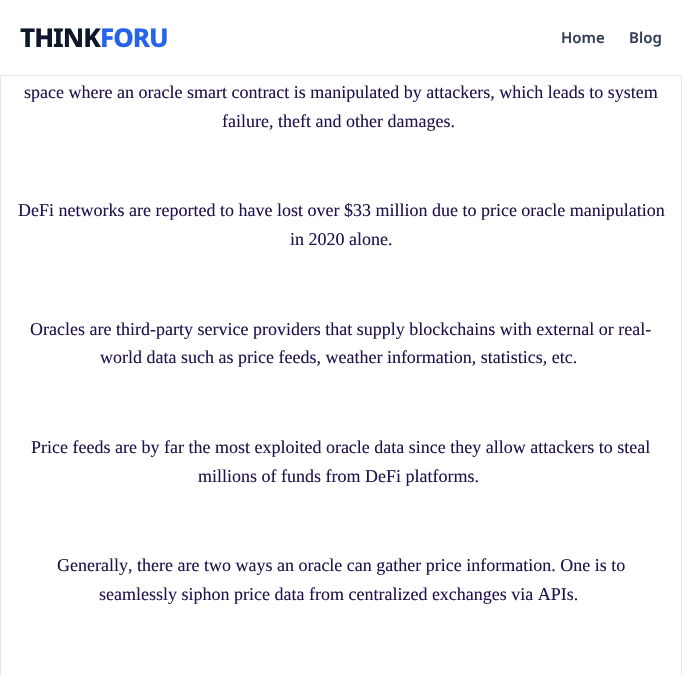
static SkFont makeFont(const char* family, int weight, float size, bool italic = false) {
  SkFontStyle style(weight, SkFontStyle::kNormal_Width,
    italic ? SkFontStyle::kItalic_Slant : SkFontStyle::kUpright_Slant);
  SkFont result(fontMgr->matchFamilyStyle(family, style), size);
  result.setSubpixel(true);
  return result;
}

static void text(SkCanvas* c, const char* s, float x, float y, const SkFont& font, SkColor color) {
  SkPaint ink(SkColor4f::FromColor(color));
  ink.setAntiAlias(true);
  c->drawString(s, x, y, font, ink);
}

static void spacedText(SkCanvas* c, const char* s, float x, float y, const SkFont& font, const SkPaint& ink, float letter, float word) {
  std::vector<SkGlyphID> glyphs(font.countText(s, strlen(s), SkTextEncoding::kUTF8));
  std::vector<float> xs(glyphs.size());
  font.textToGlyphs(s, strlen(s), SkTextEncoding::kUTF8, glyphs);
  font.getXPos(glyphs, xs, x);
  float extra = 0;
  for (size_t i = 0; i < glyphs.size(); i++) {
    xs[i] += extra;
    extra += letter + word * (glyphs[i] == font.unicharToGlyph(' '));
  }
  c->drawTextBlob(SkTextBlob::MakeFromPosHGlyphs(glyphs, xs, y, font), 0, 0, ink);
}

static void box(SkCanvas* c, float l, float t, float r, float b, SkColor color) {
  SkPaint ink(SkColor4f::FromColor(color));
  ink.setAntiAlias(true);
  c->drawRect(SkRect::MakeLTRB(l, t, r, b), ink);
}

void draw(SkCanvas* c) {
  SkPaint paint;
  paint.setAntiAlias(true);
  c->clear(0xffffffff);
  paint.setStyle(SkPaint::kStroke_Style);
  paint.setStrokeWidth(1);
  paint.setColor(0xffe2e8f0);
  c->drawRect(SkRect::MakeLTRB(0.5f, -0.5f, 681.5f, 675.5f), paint);
  box(c, 0, 0, 682, 75, 0xffffffff);
  box(c, 0, 75, 682, 76, 0xffe2e8f0);
  SkFont face1 = makeFont("Noto Sans", 800, 26);
  paint.setStyle(SkPaint::kFill_Style);
  paint.setColor(0xff0f172a);
  spacedText(c, "THINK", 20, 47, face1, paint, -1, 0);
  paint.setColor(0xff2563eb);
  spacedText(c, "FORU", 100, 47, face1, paint, -1, 0);
  SkFont face2 = makeFont("Noto Sans", 600, 15);
  text(c, "Home", 561, 43, face2, 0xff334155);
  text(c, "Blog", 629, 43, face2, 0xff334155);
  SkFont face3 = makeFont("Liberation Serif", 400, 18);
  text(c, "space where an oracle smart contract is manipulated by attackers, which leads to system", 24, 98, face3, 0xff20124d);
  text(c, "failure, theft and other damages.", 222, 127, face3, 0xff20124d);
  text(c, "DeFi networks are reported to have lost over $33 million due to price oracle manipulation", 18, 216, face3, 0xff20124d);
  text(c, "in 2020 alone.", 290, 245, face3, 0xff20124d);
  text(c, "Oracles are third-party service providers that supply blockchains with external or real-", 30, 335, face3, 0xff20124d);
  text(c, "world data such as price feeds, weather information, statistics, etc.", 100, 363, face3, 0xff20124d);
  text(c, "Price feeds are by far the most exploited oracle data since they allow attackers to steal", 31, 453, face3, 0xff20124d);
  text(c, "millions of funds from DeFi platforms.", 198, 482, face3, 0xff20124d);
  text(c, "Generally, there are two ways an oracle can gather price information. One is to", 57, 571, face3, 0xff20124d);
  text(c, "seamlessly siphon price data from centralized exchanges via APIs.", 99, 600, face3, 0xff20124d);
}
